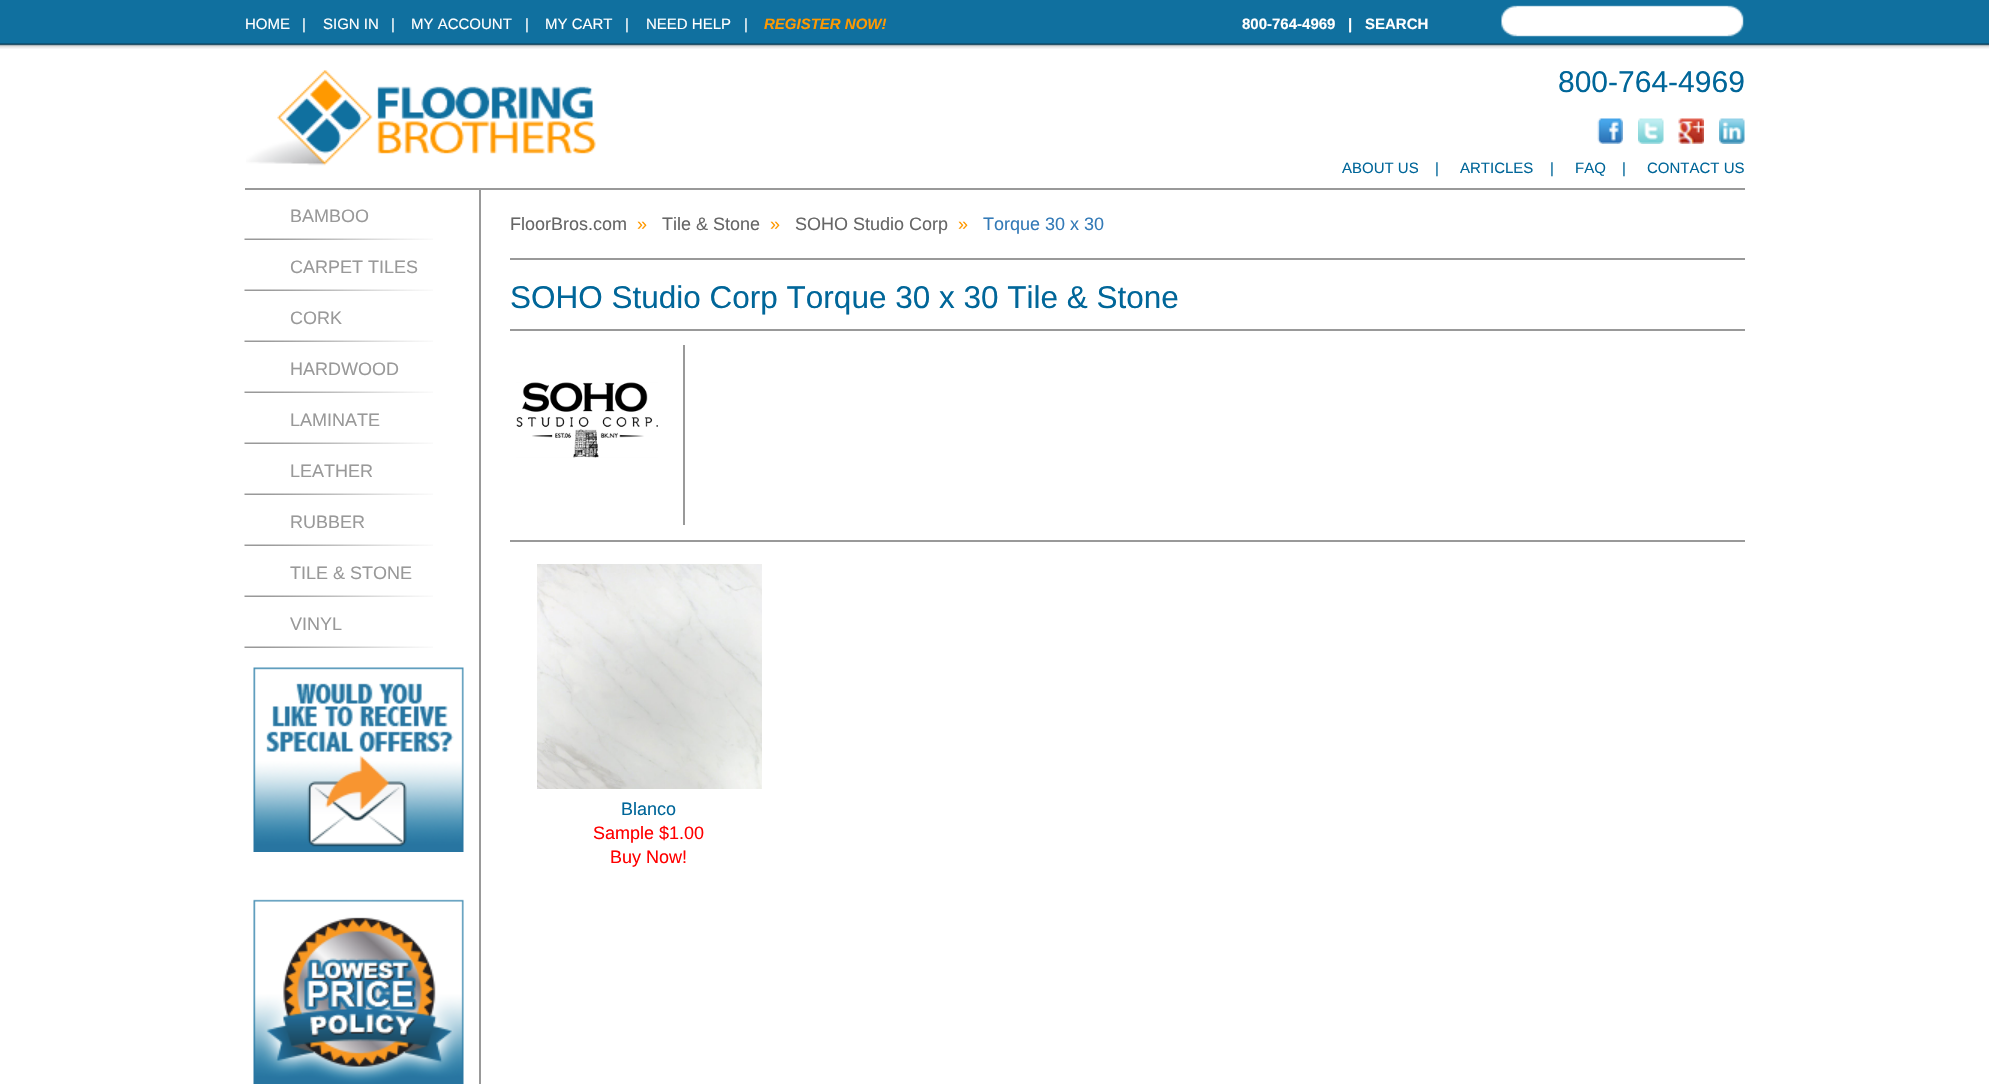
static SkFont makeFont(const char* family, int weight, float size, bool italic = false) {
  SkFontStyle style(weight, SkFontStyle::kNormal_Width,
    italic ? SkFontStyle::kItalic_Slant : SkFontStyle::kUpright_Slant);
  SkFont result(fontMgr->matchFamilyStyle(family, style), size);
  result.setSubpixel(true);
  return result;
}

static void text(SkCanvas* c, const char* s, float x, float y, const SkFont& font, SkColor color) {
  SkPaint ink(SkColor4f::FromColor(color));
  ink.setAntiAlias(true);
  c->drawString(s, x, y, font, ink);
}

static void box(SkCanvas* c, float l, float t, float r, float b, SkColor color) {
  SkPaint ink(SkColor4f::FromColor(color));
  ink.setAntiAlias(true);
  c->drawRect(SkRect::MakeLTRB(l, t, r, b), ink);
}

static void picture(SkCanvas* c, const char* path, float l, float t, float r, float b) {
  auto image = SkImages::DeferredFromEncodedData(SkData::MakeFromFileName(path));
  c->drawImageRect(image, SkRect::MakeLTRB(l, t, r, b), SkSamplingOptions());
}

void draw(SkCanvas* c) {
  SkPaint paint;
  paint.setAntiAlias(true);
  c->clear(0xffffffff);
  picture(c, "img_01.png", 0, 0, 1989, 49);
  SkFont face1 = makeFont("Liberation Sans", 400, 15);
  text(c, "HOME", 245, 29, face1, 0xffffffff);
  text(c, "|", 302, 29, face1, 0xffffffff);
  text(c, "SIGN IN", 323, 29, face1, 0xffffffff);
  text(c, "|", 391, 29, face1, 0xffffffff);
  text(c, "MY ACCOUNT", 411, 29, face1, 0xffffffff);
  text(c, "|", 525, 29, face1, 0xffffffff);
  text(c, "MY CART", 545, 29, face1, 0xffffffff);
  text(c, "|", 625, 29, face1, 0xffffffff);
  text(c, "NEED HELP", 646, 29, face1, 0xffffffff);
  text(c, "|", 744, 29, face1, 0xffffffff);
  SkFont face2 = makeFont("Liberation Sans", 700, 15, true);
  text(c, "REGISTER NOW!", 764, 29, face2, 0xffff9900);
  SkFont face3 = makeFont("Liberation Sans", 700, 15);
  text(c, "800-764-4969   |", 1242, 29, face3, 0xffffffff);
  text(c, "SEARCH", 1365, 29, face3, 0xffffffff);
  picture(c, "img_02.png", 1501, 5, 1744, 37);
  box(c, 245, 188, 1745, 190, 0xff999999);
  picture(c, "img_03.png", 246, 70, 596, 166);
  SkFont face4 = makeFont("Liberation Sans", 400, 30);
  text(c, "800-764-4969", 1558, 92, face4, 0xff006699);
  picture(c, "img_04.png", 1597, 118, 1623, 144);
  picture(c, "img_05.png", 1638, 118, 1664, 144);
  picture(c, "img_06.png", 1678, 118, 1704, 144);
  picture(c, "img_07.png", 1719, 118, 1745, 144);
  text(c, "ABOUT US", 1342, 173, face1, 0xff006699);
  text(c, "|", 1435, 173, face1, 0xff006699);
  text(c, "ARTICLES", 1460, 173, face1, 0xff006699);
  text(c, "|", 1550, 173, face1, 0xff006699);
  text(c, "FAQ", 1575, 173, face1, 0xff006699);
  text(c, "|", 1622, 173, face1, 0xff006699);
  text(c, "CONTACT US", 1647, 173, face1, 0xff006699);
  picture(c, "img_08.png", 244, 238, 433, 240);
  SkFont face5 = makeFont("Liberation Sans", 400, 18);
  text(c, "BAMBOO", 290, 222, face5, 0xff999999);
  picture(c, "img_08.png", 244, 289, 433, 291);
  text(c, "CARPET TILES", 290, 273, face5, 0xff999999);
  picture(c, "img_08.png", 244, 340, 433, 342);
  text(c, "CORK", 290, 324, face5, 0xff999999);
  picture(c, "img_08.png", 244, 391, 433, 393);
  text(c, "HARDWOOD", 290, 375, face5, 0xff999999);
  picture(c, "img_08.png", 244, 442, 433, 444);
  text(c, "LAMINATE", 290, 426, face5, 0xff999999);
  picture(c, "img_08.png", 244, 493, 433, 495);
  text(c, "LEATHER", 290, 477, face5, 0xff999999);
  picture(c, "img_08.png", 244, 544, 433, 546);
  text(c, "RUBBER", 290, 528, face5, 0xff999999);
  picture(c, "img_08.png", 244, 595, 433, 597);
  text(c, "TILE & STONE", 290, 579, face5, 0xff999999);
  picture(c, "img_08.png", 244, 646, 433, 648);
  text(c, "VINYL", 290, 630, face5, 0xff999999);
  picture(c, "img_09.png", 253, 667, 464, 852);
  picture(c, "img_10.png", 253, 899, 464, 1084);
  box(c, 479, 189, 481, 1084, 0xff999999);
  text(c, "FloorBros.com", 510, 230, face5, 0xff666666);
  text(c, "»", 637, 230, face5, 0xffff9900);
  text(c, "Tile & Stone", 662, 230, face5, 0xff666666);
  text(c, "»", 770, 230, face5, 0xffff9900);
  text(c, "SOHO Studio Corp", 795, 230, face5, 0xff666666);
  text(c, "»", 958, 230, face5, 0xffff9900);
  text(c, "Torque 30 x 30", 983, 230, face5, 0xff337ab7);
  box(c, 510, 258, 1745, 260, 0xff999999);
  box(c, 510, 329, 1745, 331, 0xff999999);
  SkFont face6 = makeFont("Liberation Sans", 400, 31.5f);
  text(c, "SOHO Studio Corp Torque 30 x 30 Tile & Stone", 510, 308, face6, 0xff006699);
  picture(c, "img_11.png", 516, 382, 658, 458);
  box(c, 683, 345, 685, 525, 0xff999999);
  box(c, 510, 540, 1745, 542, 0xff999999);
  picture(c, "img_12.png", 537, 564, 762, 789);
  text(c, "Blanco", 621, 815, face5, 0xff006699);
  text(c, "Sample $1.00", 593, 839, face5, 0xffff0000);
  text(c, "Buy Now!", 610, 863, face5, 0xffff0000);
}
